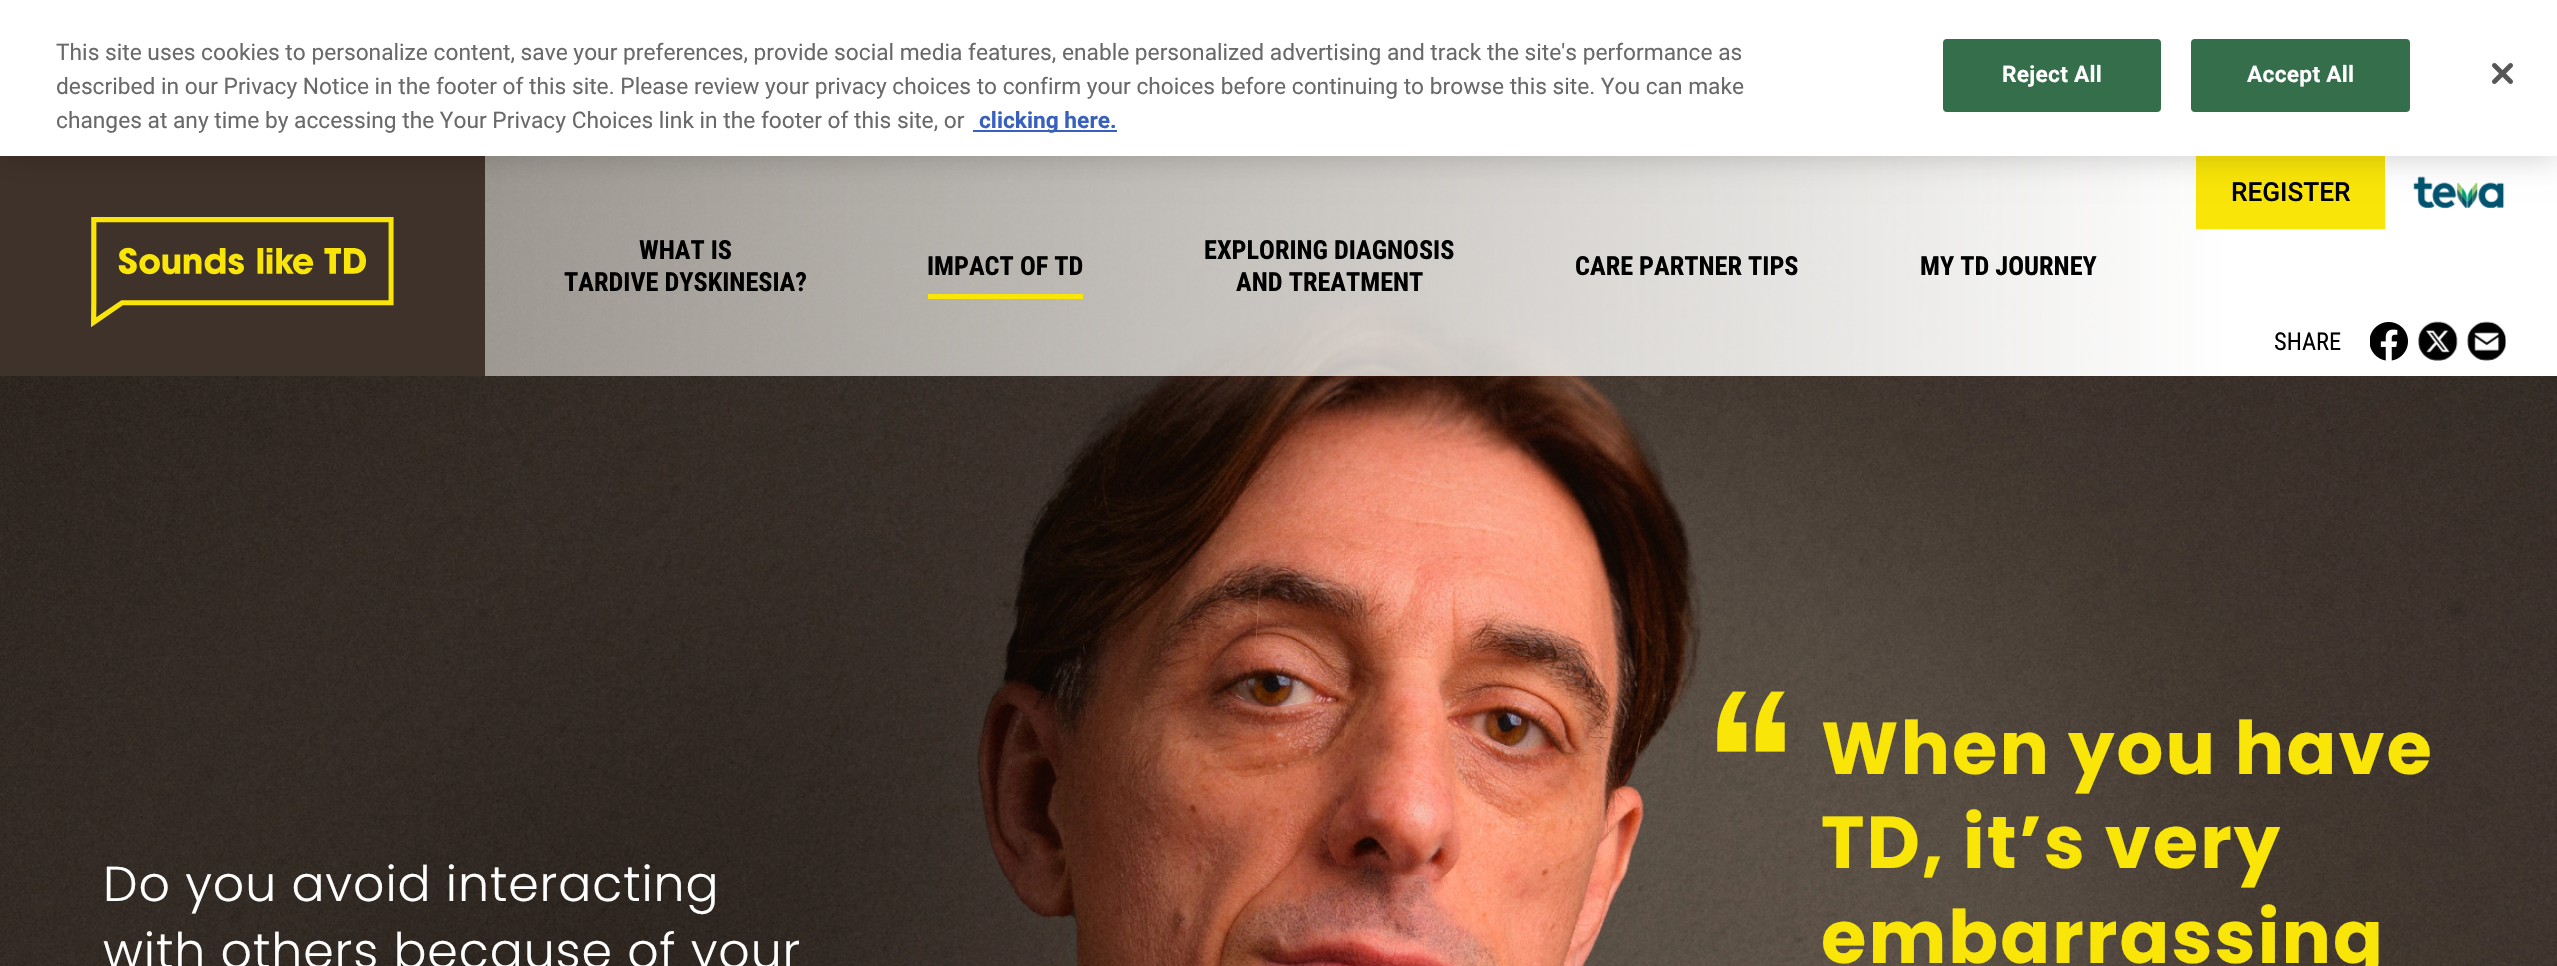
static SkFont makeFont(const char* family, int weight, float size, bool italic = false) {
  SkFontStyle style(weight, SkFontStyle::kNormal_Width,
    italic ? SkFontStyle::kItalic_Slant : SkFontStyle::kUpright_Slant);
  SkFont result(fontMgr->matchFamilyStyle(family, style), size);
  result.setSubpixel(true);
  return result;
}

static void text(SkCanvas* c, const char* s, float x, float y, const SkFont& font, SkColor color) {
  SkPaint ink(SkColor4f::FromColor(color));
  ink.setAntiAlias(true);
  c->drawString(s, x, y, font, ink);
}

static void spacedText(SkCanvas* c, const char* s, float x, float y, const SkFont& font, const SkPaint& ink, float letter, float word) {
  std::vector<SkGlyphID> glyphs(font.countText(s, strlen(s), SkTextEncoding::kUTF8));
  std::vector<float> xs(glyphs.size());
  font.textToGlyphs(s, strlen(s), SkTextEncoding::kUTF8, glyphs);
  font.getXPos(glyphs, xs, x);
  float extra = 0;
  for (size_t i = 0; i < glyphs.size(); i++) {
    xs[i] += extra;
    extra += letter + word * (glyphs[i] == font.unicharToGlyph(' '));
  }
  c->drawTextBlob(SkTextBlob::MakeFromPosHGlyphs(glyphs, xs, y, font), 0, 0, ink);
}

static void box(SkCanvas* c, float l, float t, float r, float b, SkColor color) {
  SkPaint ink(SkColor4f::FromColor(color));
  ink.setAntiAlias(true);
  c->drawRect(SkRect::MakeLTRB(l, t, r, b), ink);
}

static void picture(SkCanvas* c, const char* path, float l, float t, float r, float b) {
  auto image = SkImages::DeferredFromEncodedData(SkData::MakeFromFileName(path));
  c->drawImageRect(image, SkRect::MakeLTRB(l, t, r, b), SkSamplingOptions());
}

void draw(SkCanvas* c) {
  SkPaint paint;
  paint.setAntiAlias(true);
  c->clear(0xffffffff);
  picture(c, "img_07.png", 0, 156, 2557, 966);
  box(c, 0, 156, 485, 376, 0xff3f322a);
  box(c, 2196, 156, 2385, 229, 0xfff9e508);
  picture(c, "img_03.png", 2413, 176, 2505, 209);
  paint.setColor(0x33000000);
  paint.setMaskFilter(SkMaskFilter::MakeBlur(kNormal_SkBlurStyle, 16));
  c->drawRect(SkRect::MakeLTRB(0, 0, 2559, 156), paint);
  paint.setMaskFilter(nullptr);
  box(c, 0, 0, 2557, 156, 0xffffffff);
  SkFont face1 = makeFont("Roboto", 400, 22.75f);
  text(c, "This site uses cookies to personalize content, save your preferences, provide social media features, enable personalized advertising and track the site's performance as", 56, 60, face1, 0xff696969);
  text(c, "described in our Privacy Notice in the footer of this site. Please review your privacy choices to confirm your choices before continuing to browse this site. You can make", 56, 94, face1, 0xff696969);
  text(c, "changes at any time by accessing the Your Privacy Choices link in the footer of this site, or", 56, 128, face1, 0xff696969);
  box(c, 973, 130, 1117, 132, 0xff3860be);
  SkFont face2 = makeFont("Roboto", 700, 22.75f);
  text(c, "clicking here.", 979, 128, face2, 0xff3860be);
  paint.setColor(0xff346e4a);
  c->drawRoundRect(SkRect::MakeLTRB(1944, 40, 2160, 111), 3, 3, paint);
  paint.setStyle(SkPaint::kStroke_Style);
  paint.setStrokeWidth(2);
  c->drawRoundRect(SkRect::MakeLTRB(1944, 40, 2160, 111), 3, 3, paint);
  paint.setStyle(SkPaint::kFill_Style);
  paint.setColor(0xffffffff);
  spacedText(c, "Reject All", 2002, 82, face2, paint, 0.25f, 0);
  paint.setColor(0xff346e4a);
  c->drawRoundRect(SkRect::MakeLTRB(2192, 40, 2409, 111), 3, 3, paint);
  paint.setStyle(SkPaint::kStroke_Style);
  c->drawRoundRect(SkRect::MakeLTRB(2192, 40, 2409, 111), 3, 3, paint);
  paint.setStyle(SkPaint::kFill_Style);
  paint.setColor(0xffffffff);
  spacedText(c, "Accept All", 2247, 82, face2, paint, 0.25f, 0);
  picture(c, "img_01.png", 2492, 63, 2513, 84);
  picture(c, "img_02.png", 91, 217, 394, 327);
  SkFont face3 = makeFont("Roboto", 500, 26.25f);
  text(c, "REGISTER", 2231, 201, face3, 0xff000000);
  SkFont face4 = makeFont("Roboto Condensed", 700, 26.25f);
  text(c, "WHAT IS", 639, 259, face4, 0xff000000);
  text(c, "TARDIVE DYSKINESIA?", 564, 291, face4, 0xff000000);
  text(c, "IMPACT OF TD", 927, 275, face4, 0xff000000);
  box(c, 928, 294, 1083, 299, 0xfff9e508);
  text(c, "EXPLORING DIAGNOSIS", 1204, 259, face4, 0xff000000);
  text(c, "AND TREATMENT", 1236, 291, face4, 0xff000000);
  text(c, "CARE PARTNER TIPS", 1575, 275, face4, 0xff000000);
  text(c, "MY TD JOURNEY", 1920, 275, face4, 0xff000000);
  SkFont face5 = makeFont("Roboto Condensed", 400, 24.5f);
  text(c, "SHARE", 2274, 350, face5, 0xff000000);
  picture(c, "img_04.png", 2370, 322, 2408, 361);
  picture(c, "img_05.png", 2418, 321, 2458, 361);
  picture(c, "img_06.png", 2467, 321, 2506, 361);
  SkFont face6 = makeFont("Poppins", 300, 49);
  spacedText(c, "Do you avoid interacting", 103, 901, face6, paint, 0.9f, 0);
  spacedText(c, "with others because of your", 103, 968, face6, paint, 0.9f, 0);
  SkFont face7 = makeFont("BIZ UDPGothic", 700, 192);
  paint.setColor(0xfff9e508);
  spacedText(c, "“", 1702, 856, face7, paint, 2.1f, 0);
  SkFont face8 = makeFont("Poppins", 700, 73.5f);
  spacedText(c, "When", 1821, 774, face8, paint, 2.1f, 0);
  spacedText(c, "you have", 2068, 774, face8, paint, 2.1f, 0);
  spacedText(c, "TD, it’s very", 1821, 868, face8, paint, 2.1f, 0);
  spacedText(c, "embarrassing", 1821, 963, face8, paint, 2.1f, 0);
}
